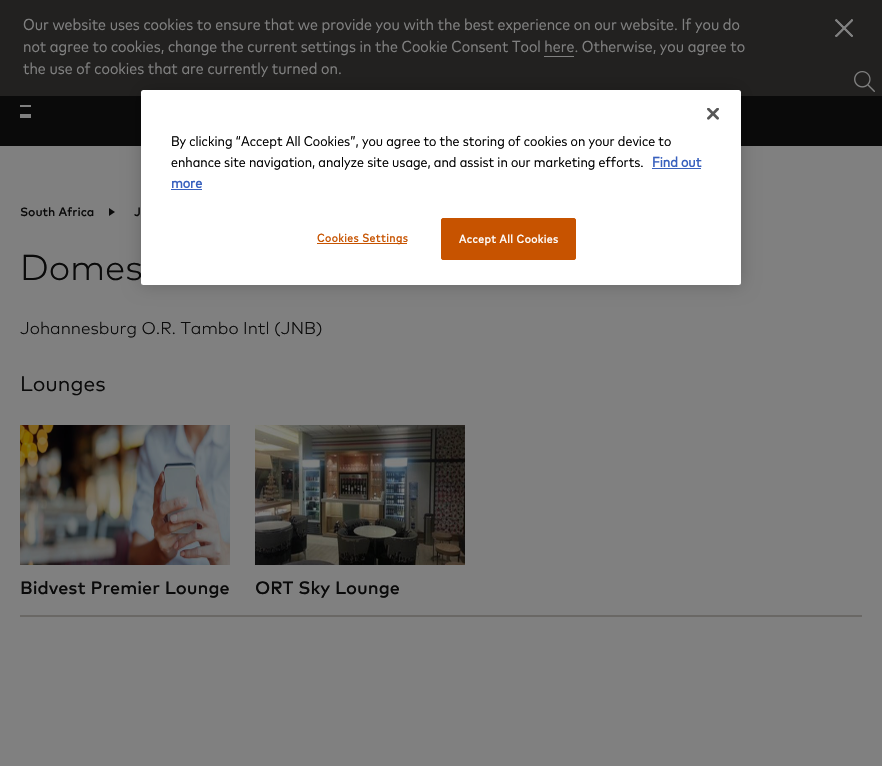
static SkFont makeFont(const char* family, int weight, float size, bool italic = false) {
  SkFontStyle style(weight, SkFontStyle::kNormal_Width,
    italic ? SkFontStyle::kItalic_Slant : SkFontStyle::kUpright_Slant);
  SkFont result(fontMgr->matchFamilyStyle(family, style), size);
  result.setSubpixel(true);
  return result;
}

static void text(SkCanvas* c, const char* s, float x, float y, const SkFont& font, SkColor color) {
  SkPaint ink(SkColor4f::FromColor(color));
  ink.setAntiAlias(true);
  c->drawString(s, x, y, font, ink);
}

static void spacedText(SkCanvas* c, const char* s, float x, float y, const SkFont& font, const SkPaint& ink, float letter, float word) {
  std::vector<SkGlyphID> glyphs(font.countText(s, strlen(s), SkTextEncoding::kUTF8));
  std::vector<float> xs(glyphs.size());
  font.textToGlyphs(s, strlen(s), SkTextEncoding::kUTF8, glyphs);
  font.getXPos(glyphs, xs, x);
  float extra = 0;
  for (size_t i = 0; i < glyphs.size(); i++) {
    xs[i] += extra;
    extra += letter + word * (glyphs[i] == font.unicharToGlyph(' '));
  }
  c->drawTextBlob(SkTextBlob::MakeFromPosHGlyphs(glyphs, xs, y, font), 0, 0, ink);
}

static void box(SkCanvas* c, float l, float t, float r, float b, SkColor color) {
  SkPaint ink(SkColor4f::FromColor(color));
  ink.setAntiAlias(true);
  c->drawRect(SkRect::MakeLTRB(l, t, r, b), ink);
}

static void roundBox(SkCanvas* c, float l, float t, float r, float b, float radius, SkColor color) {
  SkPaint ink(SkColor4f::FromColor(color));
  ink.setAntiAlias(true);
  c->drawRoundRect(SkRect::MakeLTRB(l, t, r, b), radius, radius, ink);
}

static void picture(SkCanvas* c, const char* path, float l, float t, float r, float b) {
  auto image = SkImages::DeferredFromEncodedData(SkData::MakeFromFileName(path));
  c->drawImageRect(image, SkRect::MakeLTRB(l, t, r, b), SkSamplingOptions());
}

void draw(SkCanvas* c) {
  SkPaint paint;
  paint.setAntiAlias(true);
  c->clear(0xff808080);
  box(c, 0, 0, 882, 96, 0xff222120);
  SkFont face1 = makeFont("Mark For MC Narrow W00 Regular", 400, 16);
  text(c, "Our website uses cookies to ensure that we provide you with the best experience on our website. If you do", 23, 30, face1, 0xff808080);
  text(c, "not agree to cookies, change the current settings in the Cookie Consent Tool here. Otherwise, you agree to", 23, 52, face1, 0xff808080);
  box(c, 544, 56, 574, 57, 0xff808080);
  text(c, "the use of cookies that are currently turned on.", 23, 74, face1, 0xff808080);
  picture(c, "img_01.png", 835, 19, 853, 37);
  box(c, 0, 96, 882, 146, 0xff0a0a0a);
  picture(c, "img_02.png", 854, 71, 875, 92);
  box(c, 20, 105, 31, 107, 0xff808080);
  box(c, 20, 114, 31, 118, 0xff808080);
  paint.setColor(0xff0a0a0a);
  c->drawPath(SkPathBuilder().moveTo(109, 216).lineTo(109, 208).lineTo(115, 212).close().detach(), paint);
  paint.setColor(0x33000000);
  paint.setMaskFilter(SkMaskFilter::MakeBlur(kNormal_SkBlurStyle, 9));
  c->drawRoundRect(SkRect::MakeLTRB(141, 90, 741, 285), 2.5f, 2.5f, paint);
  paint.setMaskFilter(nullptr);
  SkFont face2 = makeFont("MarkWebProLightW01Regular", 300, 36);
  text(c, "Domes", 20, 280, face2, 0xff0a0a0a);
  roundBox(c, 141, 90, 741, 285, 2.5f, 0xffffffff);
  picture(c, "img_03.png", 707, 108, 719, 120);
  SkFont face3 = makeFont("Mark For MC Narrow W00 Regular", 400, 14);
  text(c, "By clicking “Accept All Cookies”, you agree to the storing of cookies on your device to", 171, 146, face3, 0xff000000);
  text(c, "enhance site navigation, analyze site usage, and assist in our marketing efforts.", 171, 167, face3, 0xff000000);
  SkFont face4 = makeFont("Mark For MC Narrow W00 Regular", 700, 14);
  text(c, "Find out", 652, 167, face4, 0xff3860be);
  box(c, 652, 168, 701, 169, 0xff3860be);
  text(c, "more", 171, 188, face4, 0xff3860be);
  box(c, 171, 189, 202, 190, 0xff3860be);
  box(c, 317, 243, 407, 244, 0xffc75300);
  SkFont face5 = makeFont("Mark For MC Narrow W00 Regular", 700, 11.4f);
  paint.setColor(0xffc75300);
  spacedText(c, "Cookies Settings", 317, 242, face5, paint, 0.6f, 0);
  c->drawRoundRect(SkRect::MakeLTRB(441.5f, 218.5f, 575.5f, 259.5f), 1.5f, 1.5f, paint);
  paint.setStyle(SkPaint::kStroke_Style);
  paint.setStrokeWidth(1);
  c->drawRoundRect(SkRect::MakeLTRB(441.5f, 218.5f, 575.5f, 259.5f), 1.5f, 1.5f, paint);
  paint.setStyle(SkPaint::kFill_Style);
  paint.setColor(0xffffffff);
  spacedText(c, "Accept All Cookies", 459, 243, face5, paint, 0.6f, 0);
  SkFont face6 = makeFont("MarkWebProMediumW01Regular", 500, 12);
  text(c, "South Africa", 20, 216, face6, 0xff0a0a0a);
  text(c, "J", 134, 216, face6, 0xff0a0a0a);
  SkFont face7 = makeFont("MarkWebProLightW01Regular", 300, 17);
  text(c, "Johannesburg O.R. Tambo Intl (JNB)", 20, 334, face7, 0xff0a0a0a);
  box(c, 20, 615, 862, 617, 0xff6a6865);
  SkFont face8 = makeFont("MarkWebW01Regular", 400, 21);
  text(c, "Lounges", 20, 391, face8, 0xff0a0a0a);
  picture(c, "img_04.png", 20, 425, 230, 565);
  SkFont face9 = makeFont("MarkWebProMediumW01Regular", 500, 18);
  text(c, "Bidvest Premier Lounge", 20, 594, face9, 0xff0a0a0a);
  picture(c, "img_05.png", 255, 425, 465, 565);
  text(c, "ORT Sky Lounge", 255, 594, face9, 0xff0a0a0a);
}
